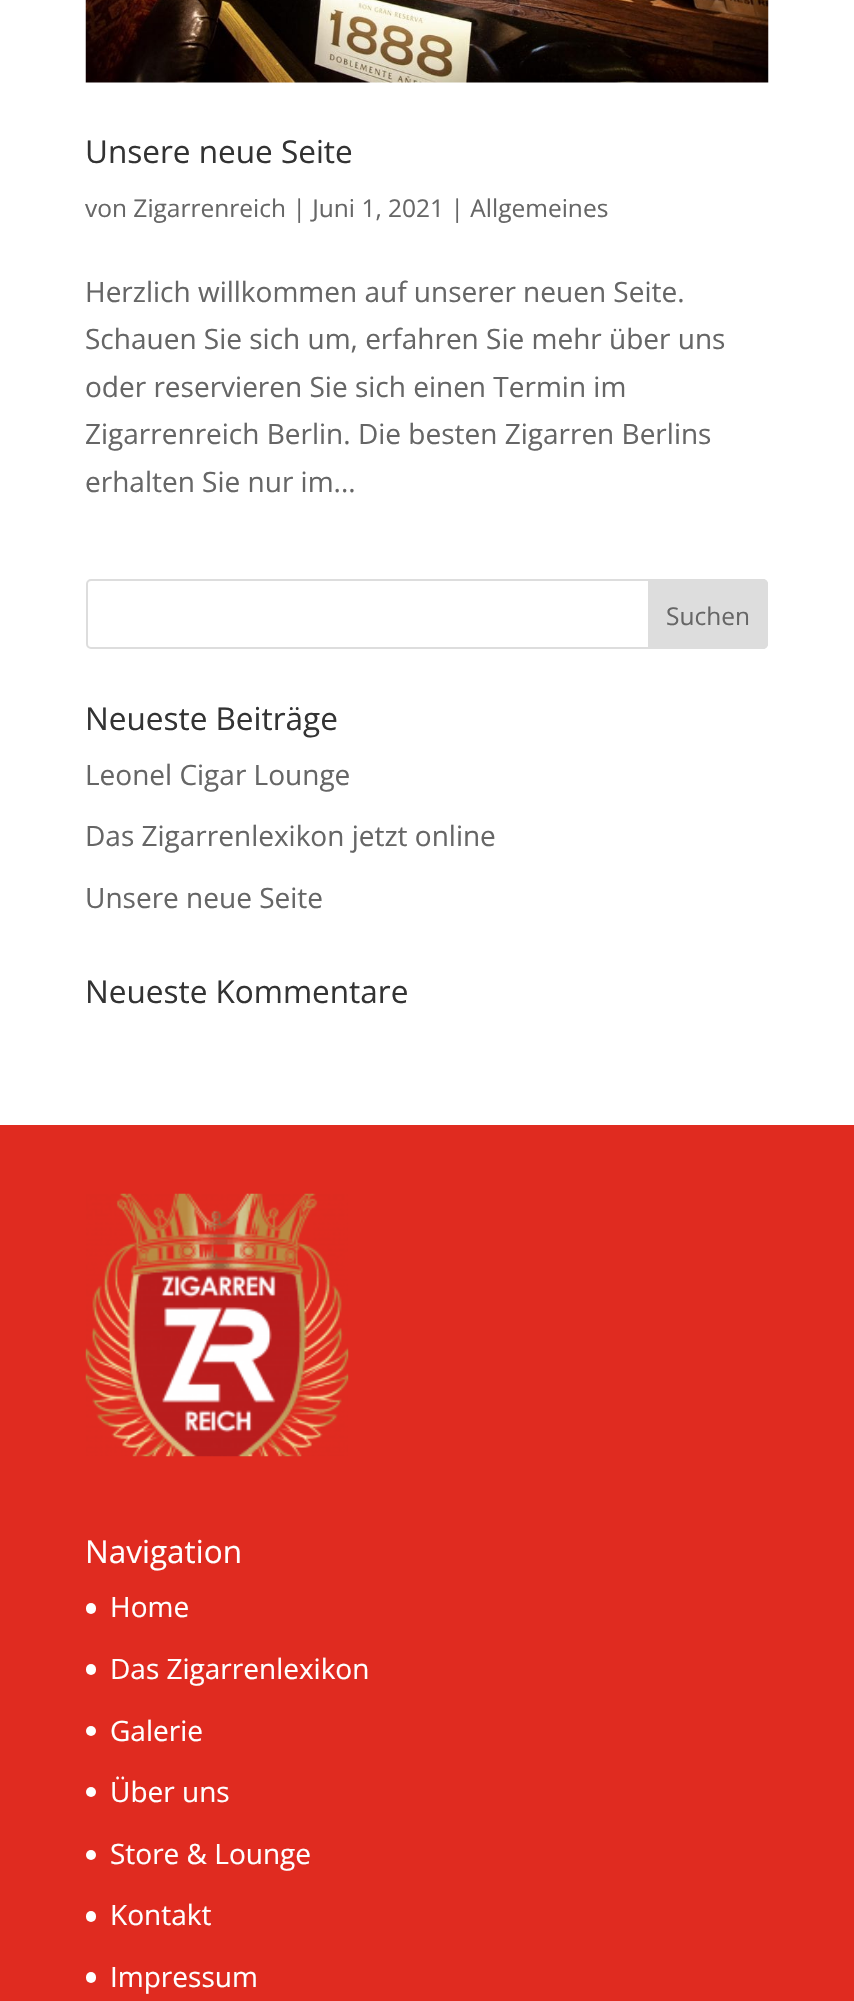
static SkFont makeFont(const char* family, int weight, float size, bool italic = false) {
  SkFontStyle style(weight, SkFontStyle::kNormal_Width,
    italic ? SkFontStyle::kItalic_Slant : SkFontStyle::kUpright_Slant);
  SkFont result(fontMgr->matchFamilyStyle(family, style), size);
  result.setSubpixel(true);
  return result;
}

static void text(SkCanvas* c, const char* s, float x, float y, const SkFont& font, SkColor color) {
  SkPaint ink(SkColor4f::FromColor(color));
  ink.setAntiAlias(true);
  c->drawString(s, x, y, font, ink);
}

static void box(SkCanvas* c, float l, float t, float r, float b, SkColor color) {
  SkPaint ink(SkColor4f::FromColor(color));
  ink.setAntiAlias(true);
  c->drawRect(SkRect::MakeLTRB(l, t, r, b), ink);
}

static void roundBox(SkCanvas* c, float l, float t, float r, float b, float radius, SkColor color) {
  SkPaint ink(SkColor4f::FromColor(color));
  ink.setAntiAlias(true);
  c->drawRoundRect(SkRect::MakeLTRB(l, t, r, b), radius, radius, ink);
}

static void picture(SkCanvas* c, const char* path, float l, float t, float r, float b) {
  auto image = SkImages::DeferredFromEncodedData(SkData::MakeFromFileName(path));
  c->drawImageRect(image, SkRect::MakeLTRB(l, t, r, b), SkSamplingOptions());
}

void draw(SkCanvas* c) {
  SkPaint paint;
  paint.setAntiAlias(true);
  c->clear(0xffffffff);
  picture(c, "img_01.png", 85, 0, 769, 83);
  SkFont face1 = makeFont("Open Sans", 400, 31.5f);
  text(c, "Unsere neue Seite", 85, 163, face1, 0xff333333);
  SkFont face2 = makeFont("Open Sans", 400, 24.5f);
  text(c, "von Zigarrenreich | Juni 1, 2021 | Allgemeines", 85, 217, face2, 0xff666666);
  SkFont face3 = makeFont("Open Sans", 400, 28);
  text(c, "Herzlich willkommen auf unserer neuen Seite.", 85, 302, face3, 0xff666666);
  text(c, "Schauen Sie sich um, erfahren Sie mehr über uns", 85, 349, face3, 0xff666666);
  text(c, "oder reservieren Sie sich einen Termin im", 85, 397, face3, 0xff666666);
  text(c, "Zigarrenreich Berlin. Die besten Zigarren Berlins", 85, 444, face3, 0xff666666);
  text(c, "erhalten Sie nur im...", 85, 492, face3, 0xff666666);
  paint.setStyle(SkPaint::kStroke_Style);
  paint.setStrokeWidth(2);
  paint.setColor(0xffdddddd);
  c->drawRoundRect(SkRect::MakeLTRB(87, 580, 767, 648), 4, 4, paint);
  paint.setStyle(SkPaint::kFill_Style);
  c->drawPath(SkPathBuilder().moveTo(649, 580).lineTo(763, 580).cubicTo(765, 580, 767, 582, 767, 584).lineTo(767, 644).cubicTo(767, 646, 765, 648, 763, 648).lineTo(649, 648).close().detach(), paint);
  paint.setStyle(SkPaint::kStroke_Style);
  c->drawPath(SkPathBuilder().moveTo(649, 580).lineTo(763, 580).cubicTo(765, 580, 767, 582, 767, 584).lineTo(767, 644).cubicTo(767, 646, 765, 648, 763, 648).lineTo(649, 648).close().detach(), paint);
  text(c, "Suchen", 666, 625, face2, 0xff666666);
  text(c, "Neueste Beiträge", 85, 730, face1, 0xff333333);
  text(c, "Leonel Cigar Lounge", 85, 785, face3, 0xff666666);
  text(c, "Das Zigarrenlexikon jetzt online", 85, 846, face3, 0xff666666);
  text(c, "Unsere neue Seite", 85, 908, face3, 0xff666666);
  text(c, "Neueste Kommentare", 85, 1003, face1, 0xff333333);
  box(c, 0, 1125, 854, 2001, 0xffe02b20);
  picture(c, "img_02.png", 85, 1193, 349, 1457);
  text(c, "Navigation", 85, 1563, face1, 0xffffffff);
  roundBox(c, 86, 1603, 96, 1614, 5, 0xffffffff);
  text(c, "Home", 110, 1617, face3, 0xffffffff);
  roundBox(c, 86, 1664, 96, 1675, 5, 0xffffffff);
  text(c, "Das Zigarrenlexikon", 110, 1679, face3, 0xffffffff);
  paint.setStyle(SkPaint::kFill_Style);
  paint.setColor(0xffffffff);
  c->drawCircle(91, 1731, 5, paint);
  text(c, "Galerie", 110, 1741, face3, 0xffffffff);
  c->drawCircle(91, 1792, 5, paint);
  text(c, "Über uns", 110, 1802, face3, 0xffffffff);
  c->drawCircle(91, 1855, 5, paint);
  text(c, "Store & Lounge", 110, 1864, face3, 0xffffffff);
  roundBox(c, 86, 1911, 96, 1922, 5, 0xffffffff);
  text(c, "Kontakt", 110, 1925, face3, 0xffffffff);
  roundBox(c, 86, 1972, 96, 1983, 5, 0xffffffff);
  text(c, "Impressum", 110, 1987, face3, 0xffffffff);
}
